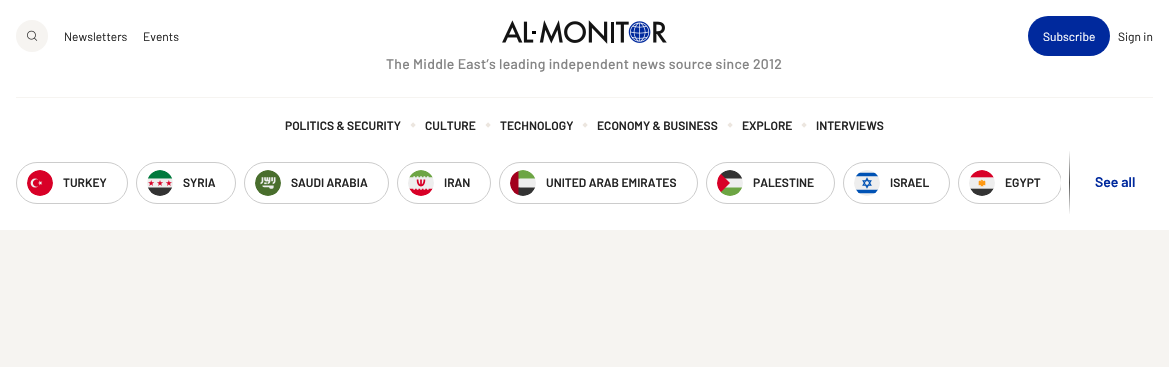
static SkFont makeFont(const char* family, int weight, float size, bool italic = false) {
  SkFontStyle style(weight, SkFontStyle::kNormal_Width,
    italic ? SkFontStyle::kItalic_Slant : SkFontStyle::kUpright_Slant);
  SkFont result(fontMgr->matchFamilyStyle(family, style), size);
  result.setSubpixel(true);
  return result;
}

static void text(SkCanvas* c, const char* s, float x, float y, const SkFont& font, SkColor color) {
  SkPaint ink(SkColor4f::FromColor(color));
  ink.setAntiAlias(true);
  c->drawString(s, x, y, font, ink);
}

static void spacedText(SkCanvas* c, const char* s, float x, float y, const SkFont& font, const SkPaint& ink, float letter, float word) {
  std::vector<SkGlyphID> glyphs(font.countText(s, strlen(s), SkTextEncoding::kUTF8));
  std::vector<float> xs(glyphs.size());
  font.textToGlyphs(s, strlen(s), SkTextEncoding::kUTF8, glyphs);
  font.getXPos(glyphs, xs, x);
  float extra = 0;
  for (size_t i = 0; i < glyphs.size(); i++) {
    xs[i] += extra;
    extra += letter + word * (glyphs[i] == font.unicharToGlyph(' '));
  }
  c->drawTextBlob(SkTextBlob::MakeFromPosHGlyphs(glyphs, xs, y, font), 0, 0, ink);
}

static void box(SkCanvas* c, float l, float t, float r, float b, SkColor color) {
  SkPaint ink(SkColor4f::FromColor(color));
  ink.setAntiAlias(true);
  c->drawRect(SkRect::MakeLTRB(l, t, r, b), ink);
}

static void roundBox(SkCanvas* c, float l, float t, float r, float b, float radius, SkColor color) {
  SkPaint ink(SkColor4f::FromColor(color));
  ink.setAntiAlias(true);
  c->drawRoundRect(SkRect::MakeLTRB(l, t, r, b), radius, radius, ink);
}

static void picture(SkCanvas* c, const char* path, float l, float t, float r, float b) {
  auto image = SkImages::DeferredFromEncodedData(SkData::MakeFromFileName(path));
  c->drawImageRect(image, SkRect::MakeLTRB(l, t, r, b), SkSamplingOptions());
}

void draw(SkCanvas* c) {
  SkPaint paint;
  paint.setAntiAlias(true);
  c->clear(0xfff6f4f1);
  box(c, 0, 0, 1169, 230, 0xffffffff);
  paint.setColor(0xfff6f4f1);
  c->drawCircle(32, 36, 16, paint);
  picture(c, "img_01.png", 27, 30, 38, 41);
  SkFont face1 = makeFont("Barlow", 400, 12);
  text(c, "Newsletters", 64, 41, face1, 0xff242424);
  text(c, "Events", 143, 41, face1, 0xff242424);
  picture(c, "img_02.png", 502, 20, 667, 44);
  roundBox(c, 1028, 16, 1110, 56, 20, 0xff00299d);
  text(c, "Subscribe", 1043, 41, face1, 0xffffffff);
  text(c, "Sign in", 1118, 41, face1, 0xff242424);
  box(c, 16, 97, 1153, 98, 0xfff6f4f1);
  SkFont face2 = makeFont("Barlow", 500, 14);
  paint.setColor(0xff848484);
  spacedText(c, "The Middle Eastʼs leading independent news source since 2012", 386, 69, face2, paint, 0.28f, 0);
  SkFont face3 = makeFont("Barlow", 600, 12);
  text(c, "POLITICS & SECURITY", 285, 130, face3, 0xff242424);
  picture(c, "img_03.png", 410, 122, 416, 128);
  text(c, "CULTURE", 425, 130, face3, 0xff242424);
  picture(c, "img_03.png", 485, 122, 491, 128);
  text(c, "TECHNOLOGY", 500, 130, face3, 0xff242424);
  picture(c, "img_03.png", 582, 122, 588, 128);
  text(c, "ECONOMY & BUSINESS", 597, 130, face3, 0xff242424);
  picture(c, "img_03.png", 727, 122, 733, 128);
  text(c, "EXPLORE", 742, 130, face3, 0xff242424);
  picture(c, "img_03.png", 801, 122, 807, 128);
  text(c, "INTERVIEWS", 816, 130, face3, 0xff242424);
  picture(c, "img_04.png", 1069, 151, 1070, 214);
  paint.setStyle(SkPaint::kStroke_Style);
  paint.setStrokeWidth(1);
  paint.setColor(0xffcccccc);
  c->drawRoundRect(SkRect::MakeLTRB(16.5f, 162.5f, 127.5f, 203.5f), 20.5f, 20.5f, paint);
  picture(c, "img_05.png", 27, 170, 53, 196);
  text(c, "TURKEY", 63, 187, face3, 0xff242424);
  c->drawRoundRect(SkRect::MakeLTRB(136.5f, 162.5f, 235.5f, 203.5f), 20.5f, 20.5f, paint);
  picture(c, "img_06.png", 147, 170, 173, 196);
  text(c, "SYRIA", 183, 187, face3, 0xff242424);
  c->drawRoundRect(SkRect::MakeLTRB(244.5f, 162.5f, 388.5f, 203.5f), 20.5f, 20.5f, paint);
  picture(c, "img_07.png", 255, 170, 281, 196);
  text(c, "SAUDI ARABIA", 291, 187, face3, 0xff242424);
  c->drawRoundRect(SkRect::MakeLTRB(397.5f, 162.5f, 490.5f, 203.5f), 20.5f, 20.5f, paint);
  picture(c, "img_08.png", 408, 170, 434, 196);
  text(c, "IRAN", 444, 187, face3, 0xff242424);
  c->drawRoundRect(SkRect::MakeLTRB(499.5f, 162.5f, 697.5f, 203.5f), 20.5f, 20.5f, paint);
  picture(c, "img_09.png", 510, 170, 536, 196);
  text(c, "UNITED ARAB EMIRATES", 546, 187, face3, 0xff242424);
  c->drawRoundRect(SkRect::MakeLTRB(706.5f, 162.5f, 834.5f, 203.5f), 20.5f, 20.5f, paint);
  picture(c, "img_10.png", 717, 170, 743, 196);
  text(c, "PALESTINE", 753, 187, face3, 0xff242424);
  c->drawRoundRect(SkRect::MakeLTRB(843.5f, 162.5f, 949.5f, 203.5f), 20.5f, 20.5f, paint);
  picture(c, "img_11.png", 854, 170, 880, 196);
  text(c, "ISRAEL", 890, 187, face3, 0xff242424);
  c->save();
  c->clipRect(SkRect::MakeLTRB(16, 162, 1061, 204));
  c->drawRoundRect(SkRect::MakeLTRB(958.5f, 162.5f, 1061.5f, 203.5f), 20.5f, 20.5f, paint);
  c->restore();
  picture(c, "img_12.png", 969, 170, 995, 196);
  text(c, "EGYPT", 1005, 187, face3, 0xff242424);
  SkFont face4 = makeFont("Barlow", 600, 14);
  text(c, "See all", 1095, 187, face4, 0xff00299d);
}
